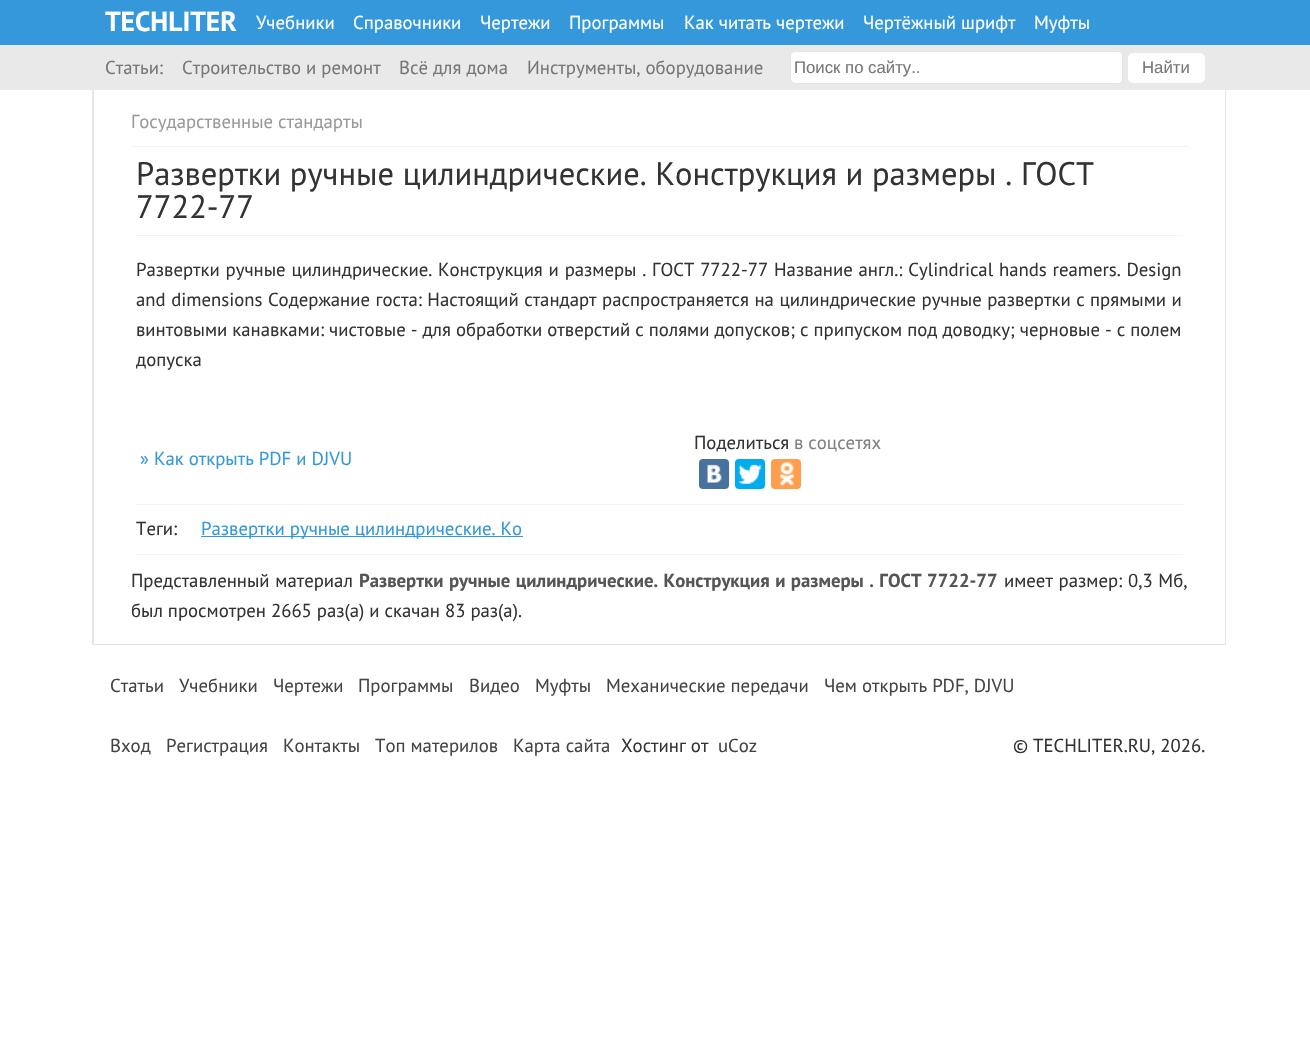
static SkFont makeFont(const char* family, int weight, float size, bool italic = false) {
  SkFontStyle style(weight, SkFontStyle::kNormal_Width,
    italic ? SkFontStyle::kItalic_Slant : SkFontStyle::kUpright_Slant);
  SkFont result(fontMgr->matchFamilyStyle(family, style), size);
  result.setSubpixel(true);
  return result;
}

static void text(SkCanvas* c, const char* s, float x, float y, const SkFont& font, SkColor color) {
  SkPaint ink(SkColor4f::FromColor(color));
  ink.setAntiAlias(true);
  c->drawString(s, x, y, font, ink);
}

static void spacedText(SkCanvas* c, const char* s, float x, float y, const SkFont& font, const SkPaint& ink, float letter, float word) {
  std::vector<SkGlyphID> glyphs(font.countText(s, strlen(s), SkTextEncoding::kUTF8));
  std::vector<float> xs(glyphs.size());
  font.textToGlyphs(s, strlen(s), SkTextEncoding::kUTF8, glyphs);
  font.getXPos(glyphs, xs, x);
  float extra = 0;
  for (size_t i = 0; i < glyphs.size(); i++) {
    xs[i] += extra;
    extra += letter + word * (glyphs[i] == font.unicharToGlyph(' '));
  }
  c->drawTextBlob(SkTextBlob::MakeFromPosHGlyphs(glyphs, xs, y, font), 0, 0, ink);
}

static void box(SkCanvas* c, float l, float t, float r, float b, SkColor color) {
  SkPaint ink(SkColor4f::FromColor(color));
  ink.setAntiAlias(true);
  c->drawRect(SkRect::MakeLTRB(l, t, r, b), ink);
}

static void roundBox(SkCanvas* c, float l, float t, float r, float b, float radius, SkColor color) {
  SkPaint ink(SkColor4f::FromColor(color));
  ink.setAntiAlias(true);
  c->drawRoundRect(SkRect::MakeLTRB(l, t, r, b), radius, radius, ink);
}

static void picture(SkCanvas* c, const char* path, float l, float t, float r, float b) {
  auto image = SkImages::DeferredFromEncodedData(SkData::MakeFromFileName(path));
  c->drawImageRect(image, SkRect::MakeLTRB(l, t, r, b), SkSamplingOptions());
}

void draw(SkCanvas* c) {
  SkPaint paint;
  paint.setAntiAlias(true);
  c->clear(0xffffffff);
  box(c, 0, 0, 1310, 45, 0xff3498db);
  SkFont face1 = makeFont("PT Sans", 700, 27.5f);
  text(c, "TECHLITER", 105, 31, face1, 0xffffffff);
  SkFont face2 = makeFont("PT Sans", 400, 18.75f);
  text(c, "Учебники", 256, 29, face2, 0xffffffff);
  text(c, "Справочники", 353, 29, face2, 0xffffffff);
  text(c, "Чертежи", 480, 29, face2, 0xffffffff);
  text(c, "Программы", 569, 29, face2, 0xffffffff);
  text(c, "Как читать чертежи", 684, 29, face2, 0xffffffff);
  text(c, "Чертёжный шрифт", 863, 29, face2, 0xffffffff);
  text(c, "Муфты", 1034, 29, face2, 0xffffffff);
  paint.setColor(0xffe6e6e6);
  c->drawPath(SkPathBuilder().moveTo(1226, 88).lineTo(1226, 645).lineTo(1225, 644).lineTo(1225, 88).close().detach(), paint);
  paint.setColor(0x1a000000);
  c->drawPath(SkPathBuilder().moveTo(1226, 645).lineTo(92, 645).lineTo(94, 644).lineTo(1225, 644).close().detach(), paint);
  c->drawPath(SkPathBuilder().moveTo(92, 645).lineTo(92, 88).lineTo(94, 88).lineTo(94, 644).close().detach(), paint);
  box(c, 0, 45, 1310, 90, 0xffe9e9e9);
  text(c, "Статьи:", 105, 74, face2, 0xff777777);
  text(c, "Строительство и ремонт", 182, 74, face2, 0xff777777);
  text(c, "Всё для дома", 399, 74, face2, 0xff777777);
  text(c, "Инструменты, оборудование", 527, 74, face2, 0xff777777);
  roundBox(c, 790, 51, 1123, 84, 5, 0xffffffff);
  paint.setStyle(SkPaint::kStroke_Style);
  paint.setStrokeWidth(1);
  c->drawRoundRect(SkRect::MakeLTRB(790.5f, 51.5f, 1122.5f, 83.5f), 4.5f, 4.5f, paint);
  SkFont face3 = makeFont("Liberation Sans", 400, 16.75f);
  text(c, "Поиск по сайту..", 794, 73, face3, 0xff777777);
  roundBox(c, 1128, 53, 1205, 83, 5, 0xffffffff);
  text(c, "Найти", 1142, 73, face3, 0xff777777);
  text(c, "Государственные стандарты", 131, 128, face2, 0xff999999);
  box(c, 131, 146, 1188, 147, 0xfff2f2f2);
  SkFont face4 = makeFont("PT Sans", 400, 32.5f);
  text(c, "Развертки ручные цилиндрические. Конструкция и размеры . ГОСТ", 136, 185, face4, 0xff333333);
  text(c, "7722-77", 136, 218, face4, 0xff333333);
  box(c, 136, 235, 1183, 236, 0xfff2f2f2);
  paint.setStyle(SkPaint::kFill_Style);
  paint.setColor(0xff333333);
  spacedText(c, "Развертки ручные цилиндрические. Конструкция и размеры . ГОСТ 7722-77 Название англ.: Cylindrical hands reamers. Design", 136, 276, face2, paint, 0, 0.8f);
  spacedText(c, "and dimensions Содержание госта: Настоящий стандарт распространяется на цилиндрические ручные развертки с прямыми и", 136, 306, face2, paint, 0, 0.5f);
  text(c, "винтовыми канавками: чистовые - для обработки отверстий с полями допусков; с припуском под доводку; черновые - с полем", 136, 336, face2, 0xff333333);
  text(c, "допуска", 136, 366, face2, 0xff333333);
  text(c, "Поделиться", 694, 449, face2, 0xff333333);
  text(c, "в соцcетях", 794, 449, face2, 0xff808080);
  roundBox(c, 699, 459, 729, 489, 4, 0xff48729e);
  picture(c, "img_01.png", 707, 464, 722, 483);
  roundBox(c, 735, 459, 765, 489, 4, 0xff00aced);
  picture(c, "img_02.png", 738, 464, 762, 484);
  roundBox(c, 771, 459, 801, 489, 4, 0xffff9f4d);
  picture(c, "img_03.png", 779, 462, 794, 486);
  text(c, "» Как открыть PDF и DJVU", 140, 465, face2, 0xff3498db);
  box(c, 136, 504, 1183, 505, 0xfff2f2f2);
  text(c, "Теги:", 136, 535, face2, 0xff333333);
  box(c, 201, 536, 523, 537, 0xff3498db);
  text(c, "Развертки ручные цилиндрические. Ко", 201, 535, face2, 0xff3498db);
  box(c, 136, 554, 1183, 555, 0xfff2f2f2);
  spacedText(c, "Представленный материал", 131, 587, face2, paint, 0, 0.75f);
  SkFont face5 = makeFont("PT Sans", 700, 18.75f);
  paint.setColor(0xff555555);
  spacedText(c, "Развертки ручные цилиндрические. Конструкция и размеры . ГОСТ 7722-77", 359, 587, face5, paint, 0, 0.75f);
  paint.setColor(0xff333333);
  spacedText(c, "имеет размер: 0,3 Мб,", 1004, 587, face2, paint, 0, 0.75f);
  text(c, "был просмотрен 2665 раз(а) и скачан 83 раз(а).", 131, 617, face2, 0xff333333);
  text(c, "Статьи", 110, 692, face2, 0xff444444);
  text(c, "Учебники", 179, 692, face2, 0xff444444);
  text(c, "Чертежи", 273, 692, face2, 0xff444444);
  text(c, "Программы", 358, 692, face2, 0xff444444);
  text(c, "Видео", 469, 692, face2, 0xff444444);
  text(c, "Муфты", 535, 692, face2, 0xff444444);
  text(c, "Механические передачи", 606, 692, face2, 0xff444444);
  text(c, "Чем открыть PDF, DJVU", 824, 692, face2, 0xff444444);
  text(c, "Вход", 110, 752, face2, 0xff444444);
  text(c, "Регистрация", 166, 752, face2, 0xff444444);
  text(c, "Контакты", 283, 752, face2, 0xff444444);
  text(c, "Топ материлов", 375, 752, face2, 0xff444444);
  text(c, "Карта сайта", 513, 752, face2, 0xff444444);
  text(c, "Хостинг от", 621, 752, face2, 0xff333333);
  text(c, "uCoz", 718, 752, face2, 0xff444444);
  text(c, "© TECHLITER.RU, 2026.", 1013, 752, face2, 0xff333333);
}
